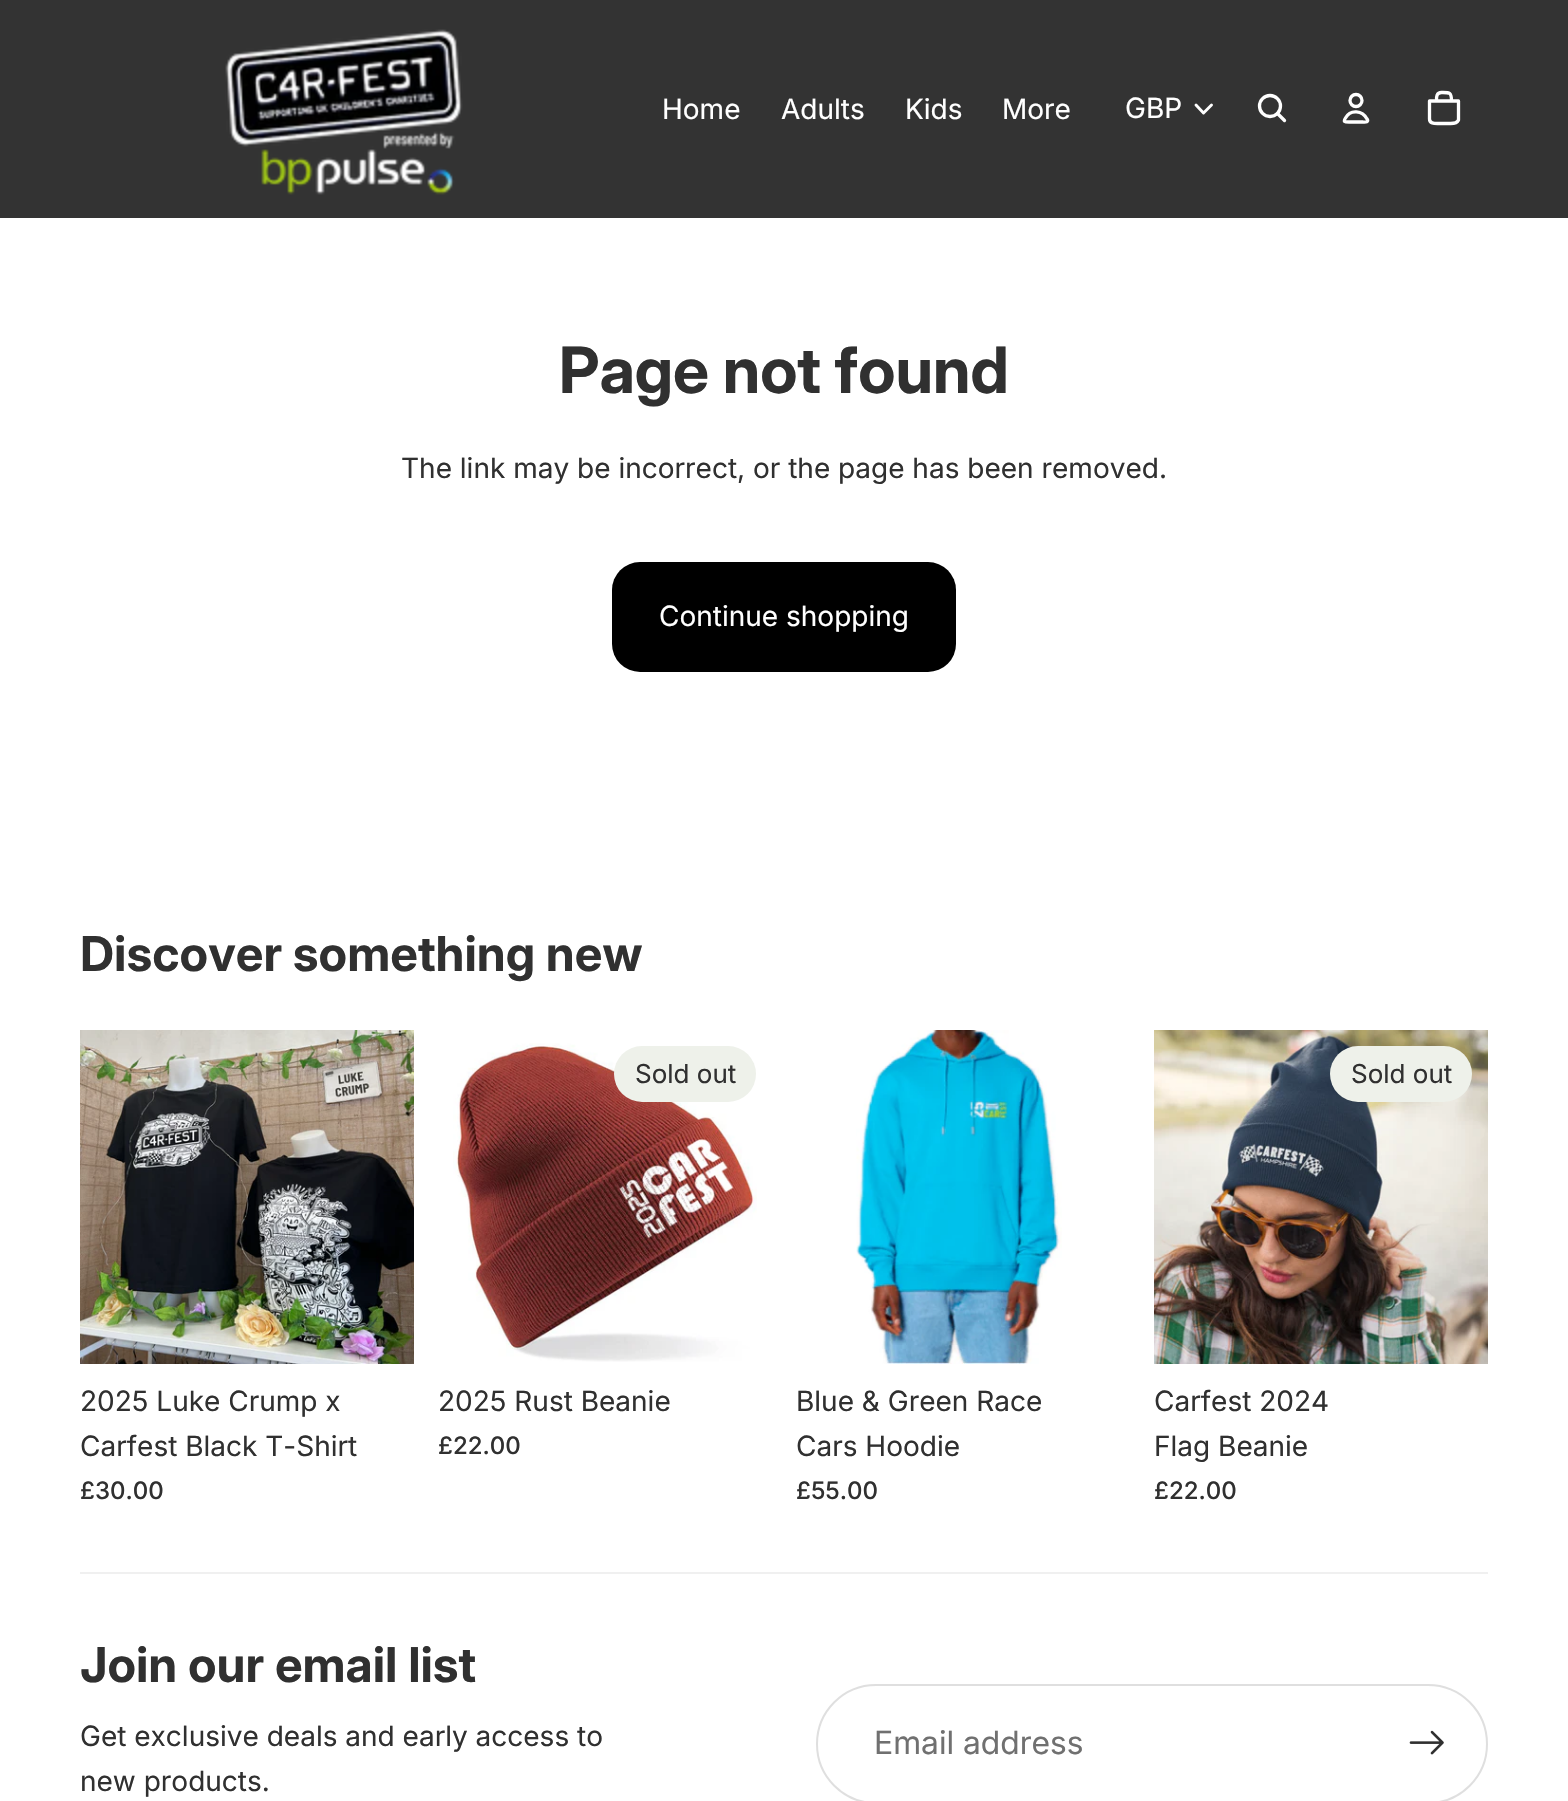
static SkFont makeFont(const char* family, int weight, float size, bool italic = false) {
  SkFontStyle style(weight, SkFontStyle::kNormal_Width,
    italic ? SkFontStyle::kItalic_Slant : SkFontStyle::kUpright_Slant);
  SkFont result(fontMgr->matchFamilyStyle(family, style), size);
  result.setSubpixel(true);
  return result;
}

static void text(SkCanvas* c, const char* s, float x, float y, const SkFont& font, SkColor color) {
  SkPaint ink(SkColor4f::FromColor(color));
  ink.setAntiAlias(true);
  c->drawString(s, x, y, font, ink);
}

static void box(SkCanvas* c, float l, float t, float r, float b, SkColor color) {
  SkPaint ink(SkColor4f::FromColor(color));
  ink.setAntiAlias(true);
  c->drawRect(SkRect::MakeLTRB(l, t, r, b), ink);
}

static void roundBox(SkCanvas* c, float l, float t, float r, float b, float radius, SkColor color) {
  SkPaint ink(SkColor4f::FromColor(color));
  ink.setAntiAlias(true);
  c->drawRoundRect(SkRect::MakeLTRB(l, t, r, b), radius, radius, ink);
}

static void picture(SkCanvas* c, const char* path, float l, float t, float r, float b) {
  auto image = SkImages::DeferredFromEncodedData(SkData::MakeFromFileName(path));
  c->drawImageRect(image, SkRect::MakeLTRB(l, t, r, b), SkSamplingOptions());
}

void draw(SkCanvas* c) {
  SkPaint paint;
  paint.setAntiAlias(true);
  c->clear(0xffffffff);
  box(c, 0, 0, 1568, 218, 0xff333333);
  picture(c, "img_01.png", 225, 29, 463, 195);
  SkFont face1 = makeFont("Inter", 400, 28);
  text(c, "Home", 662, 119, face1, 0xffffffff);
  text(c, "Adults", 781, 119, face1, 0xffffffff);
  text(c, "Kids", 905, 119, face1, 0xffffffff);
  text(c, "More", 1002, 119, face1, 0xffffffff);
  text(c, "GBP", 1125, 118, face1, 0xffffffff);
  paint.setStyle(SkPaint::kStroke_Style);
  paint.setStrokeWidth(2.9f);
  paint.setStrokeCap(SkPaint::kRound_Cap);
  paint.setStrokeJoin(SkPaint::kRound_Join);
  paint.setColor(0xffffffff);
  c->drawPath(SkPathBuilder().moveTo(1211.5f, 105).lineTo(1203.5f, 113).lineTo(1196, 105).detach(), paint);
  paint.setStrokeWidth(3.3f);
  paint.setStrokeCap(SkPaint::kButt_Cap);
  paint.setStrokeJoin(SkPaint::kMiter_Join);
  c->drawCircle(1270, 106, 10.5f, paint);
  paint.setStrokeCap(SkPaint::kRound_Cap);
  paint.setStrokeJoin(SkPaint::kRound_Join);
  c->drawPath(SkPathBuilder().moveTo(1277.5f, 113.5f).lineTo(1284.5f, 120.5f).detach(), paint);
  paint.setStrokeCap(SkPaint::kButt_Cap);
  paint.setStrokeJoin(SkPaint::kMiter_Join);
  c->drawCircle(1356, 100.5f, 6, paint);
  paint.setStrokeCap(SkPaint::kRound_Cap);
  paint.setStrokeJoin(SkPaint::kRound_Join);
  c->drawPath(SkPathBuilder().moveTo(1345.5f, 118).cubicTo(1343, 122, 1344.5f, 122, 1349, 122).lineTo(1363, 122).cubicTo(1363.5f, 122, 1367, 122.5f, 1367.5f, 121).cubicTo(1368, 120.5f, 1367.5f, 119.5f, 1367, 119).cubicTo(1362.5f, 110.5f, 1350.5f, 109, 1345.5f, 118).detach(), paint);
  c->drawPath(SkPathBuilder().moveTo(1429.5f, 101).lineTo(1458.5f, 101).lineTo(1458.5f, 120).cubicTo(1457, 123.5f, 1453.5f, 123.5f, 1450.5f, 123.5f).lineTo(1437.5f, 123.5f).cubicTo(1434, 123.5f, 1429.5f, 123.5f, 1429.5f, 119).close().moveTo(1441.5f, 92.5f).cubicTo(1449.5f, 92.5f, 1451.5f, 92, 1451.5f, 101).lineTo(1436.5f, 101).cubicTo(1436.5f, 97.5f, 1436, 92.5f, 1441.5f, 92.5f).detach(), paint);
  SkFont face2 = makeFont("Inter", 700, 64);
  text(c, "Page not found", 559, 393, face2, 0xff303030);
  text(c, "The link may be incorrect, or the page has been removed.", 401, 478, face1, 0xff303030);
  roundBox(c, 612, 562, 956, 672, 28, 0xff000000);
  text(c, "Continue shopping", 659, 626, face1, 0xffffffff);
  SkFont face3 = makeFont("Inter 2", 700, 48);
  text(c, "Discover something new", 80, 971, face3, 0xff303030);
  picture(c, "img_02.png", 80, 1030, 414, 1364);
  text(c, "2025 Luke Crump x", 80, 1411, face1, 0xff303030);
  text(c, "Carfest Black T-Shirt", 80, 1456, face1, 0xff303030);
  SkFont face4 = makeFont("Inter", 500, 24);
  text(c, "£30.00", 80, 1499, face4, 0xff303030);
  picture(c, "img_03.png", 453, 1043, 757, 1362);
  roundBox(c, 614, 1046, 756, 1102, 28, 0xffeef1ea);
  SkFont face5 = makeFont("Inter", 400, 26);
  text(c, "Sold out", 635, 1083, face5, 0xff303030);
  text(c, "2025 Rust Beanie", 438, 1411, face1, 0xff303030);
  text(c, "£22.00", 438, 1454, face4, 0xff303030);
  picture(c, "img_04.png", 856, 1030, 1062, 1364);
  text(c, "Blue & Green Race", 796, 1411, face1, 0xff303030);
  text(c, "Cars Hoodie", 796, 1456, face1, 0xff303030);
  text(c, "£55.00", 796, 1499, face4, 0xff303030);
  picture(c, "img_05.png", 1154, 1030, 1488, 1364);
  roundBox(c, 1330, 1046, 1472, 1102, 28, 0xffeef1ea);
  text(c, "Sold out", 1351, 1083, face5, 0xff303030);
  text(c, "Carfest 2024", 1154, 1411, face1, 0xff303030);
  text(c, "Flag Beanie", 1154, 1456, face1, 0xff303030);
  text(c, "£22.00", 1154, 1499, face4, 0xff303030);
  paint.setStyle(SkPaint::kFill_Style);
  paint.setColor(0xfff0f0f0);
  c->drawPath(SkPathBuilder().moveTo(1488, 1572).lineTo(1488, 1574).lineTo(1486, 1572).close().detach(), paint);
  paint.setColor(0x0f000000);
  c->drawPath(SkPathBuilder().moveTo(1488, 1574).lineTo(80, 1574).lineTo(80, 1572).lineTo(1486, 1572).close().detach(), paint);
  text(c, "Join our email list", 80, 1682, face3, 0xff303030);
  text(c, "Get exclusive deals and early access to", 80, 1746, face1, 0xff303030);
  text(c, "new products.", 80, 1791, face1, 0xff303030);
  paint.setStyle(SkPaint::kStroke_Style);
  paint.setStrokeWidth(2);
  paint.setStrokeCap(SkPaint::kButt_Cap);
  paint.setStrokeJoin(SkPaint::kMiter_Join);
  paint.setColor(0xffdfdfdf);
  c->drawRoundRect(SkRect::MakeLTRB(817, 1685, 1487, 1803), 59, 59, paint);
  SkFont face6 = makeFont("Inter 2", 400, 32);
  text(c, "Email address", 874, 1754, face6, 0xff707070);
  picture(c, "img_06.png", 1409, 1730, 1444, 1755);
}
